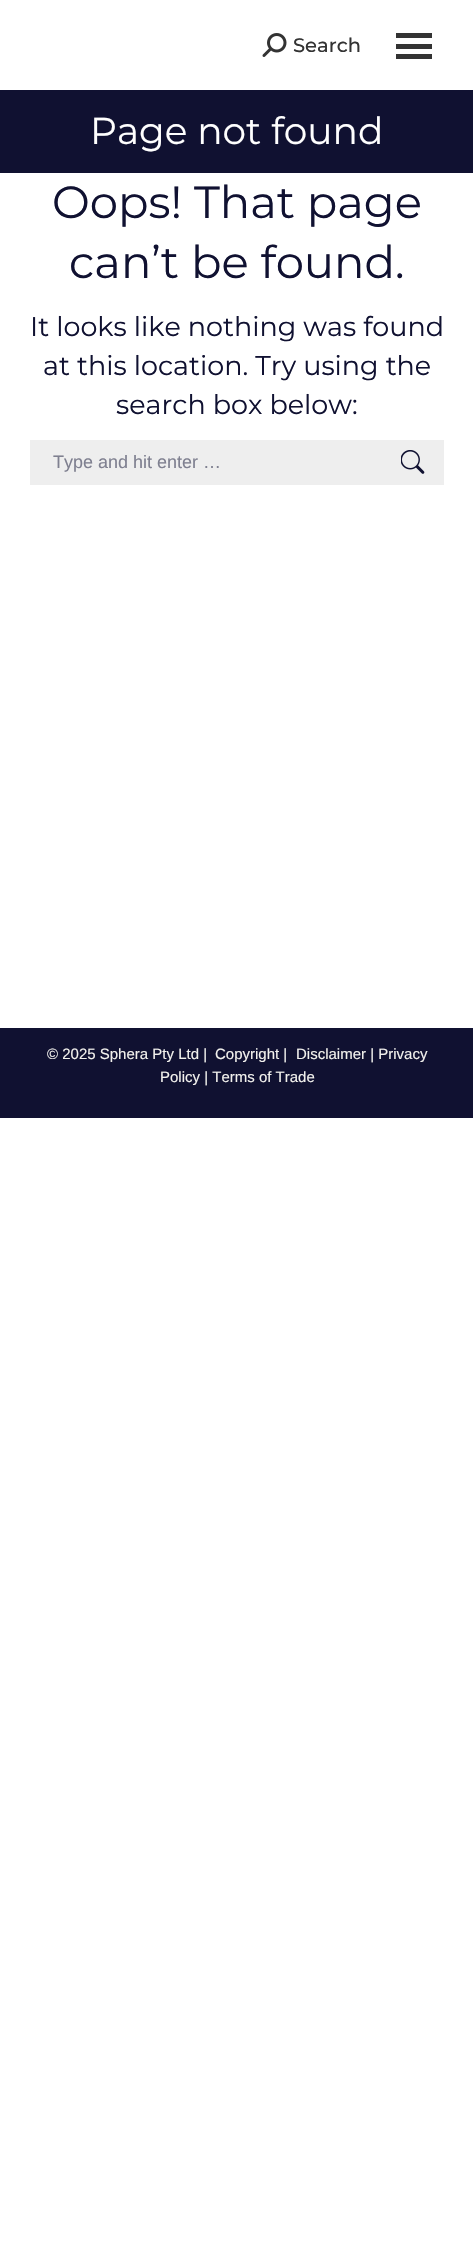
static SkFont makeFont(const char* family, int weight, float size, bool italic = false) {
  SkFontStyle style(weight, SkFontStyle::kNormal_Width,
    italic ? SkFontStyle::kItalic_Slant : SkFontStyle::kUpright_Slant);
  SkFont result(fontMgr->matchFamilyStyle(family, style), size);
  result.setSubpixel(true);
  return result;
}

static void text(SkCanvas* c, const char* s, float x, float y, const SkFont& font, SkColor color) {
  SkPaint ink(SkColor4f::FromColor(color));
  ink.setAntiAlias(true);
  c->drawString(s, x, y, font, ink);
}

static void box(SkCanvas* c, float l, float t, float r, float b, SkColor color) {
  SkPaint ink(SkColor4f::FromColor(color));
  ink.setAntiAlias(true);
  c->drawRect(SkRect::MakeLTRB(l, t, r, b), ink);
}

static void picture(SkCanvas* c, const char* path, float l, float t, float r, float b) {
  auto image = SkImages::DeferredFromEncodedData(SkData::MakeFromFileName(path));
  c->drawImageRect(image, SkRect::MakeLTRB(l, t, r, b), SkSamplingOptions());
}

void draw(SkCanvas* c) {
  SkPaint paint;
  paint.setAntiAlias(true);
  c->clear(0xffffffff);
  picture(c, "img_01.png", 262, 33, 287, 57);
  SkFont face1 = makeFont("Montserrat", 500, 19.5f);
  text(c, "Search", 293, 52, face1, 0xff333333);
  box(c, 396, 33, 432, 38, 0xff333333);
  box(c, 396, 44, 432, 49, 0xff333333);
  box(c, 396, 54, 432, 59, 0xff333333);
  box(c, 0, 90, 473, 173, 0xff101131);
  SkFont face2 = makeFont("Montserrat", 400, 37.5f);
  text(c, "Page not found", 90, 144, face2, 0xffffffff);
  SkFont face3 = makeFont("Montserrat", 400, 45);
  text(c, "Oops! That page", 52, 218, face3, 0xff101131);
  text(c, "can’t be found.", 69, 278, face3, 0xff101131);
  SkFont face4 = makeFont("Montserrat", 400, 27);
  text(c, "It looks like nothing was found", 30, 336, face4, 0xff101131);
  text(c, "at this location. Try using the", 43, 375, face4, 0xff101131);
  text(c, "search box below:", 116, 414, face4, 0xff101131);
  box(c, 30, 440, 444, 485, 0xffeeeeee);
  SkFont face5 = makeFont("Liberation Sans", 400, 18);
  text(c, "Type and hit enter …", 53, 468, face5, 0xff7f8090);
  picture(c, "img_02.png", 401, 450, 425, 474);
  box(c, 0, 1028, 473, 1118, 0xff101131);
  SkFont face6 = makeFont("Liberation Sans", 400, 15);
  text(c, "© 2025 Sphera Pty Ltd |", 47, 1059, face6, 0xfff2f1ed);
  text(c, "Copyright |", 215, 1059, face6, 0xfff2f1ed);
  text(c, "Disclaimer | Privacy", 296, 1059, face6, 0xfff2f1ed);
  text(c, "Policy | Terms of Trade", 160, 1082, face6, 0xfff2f1ed);
}
